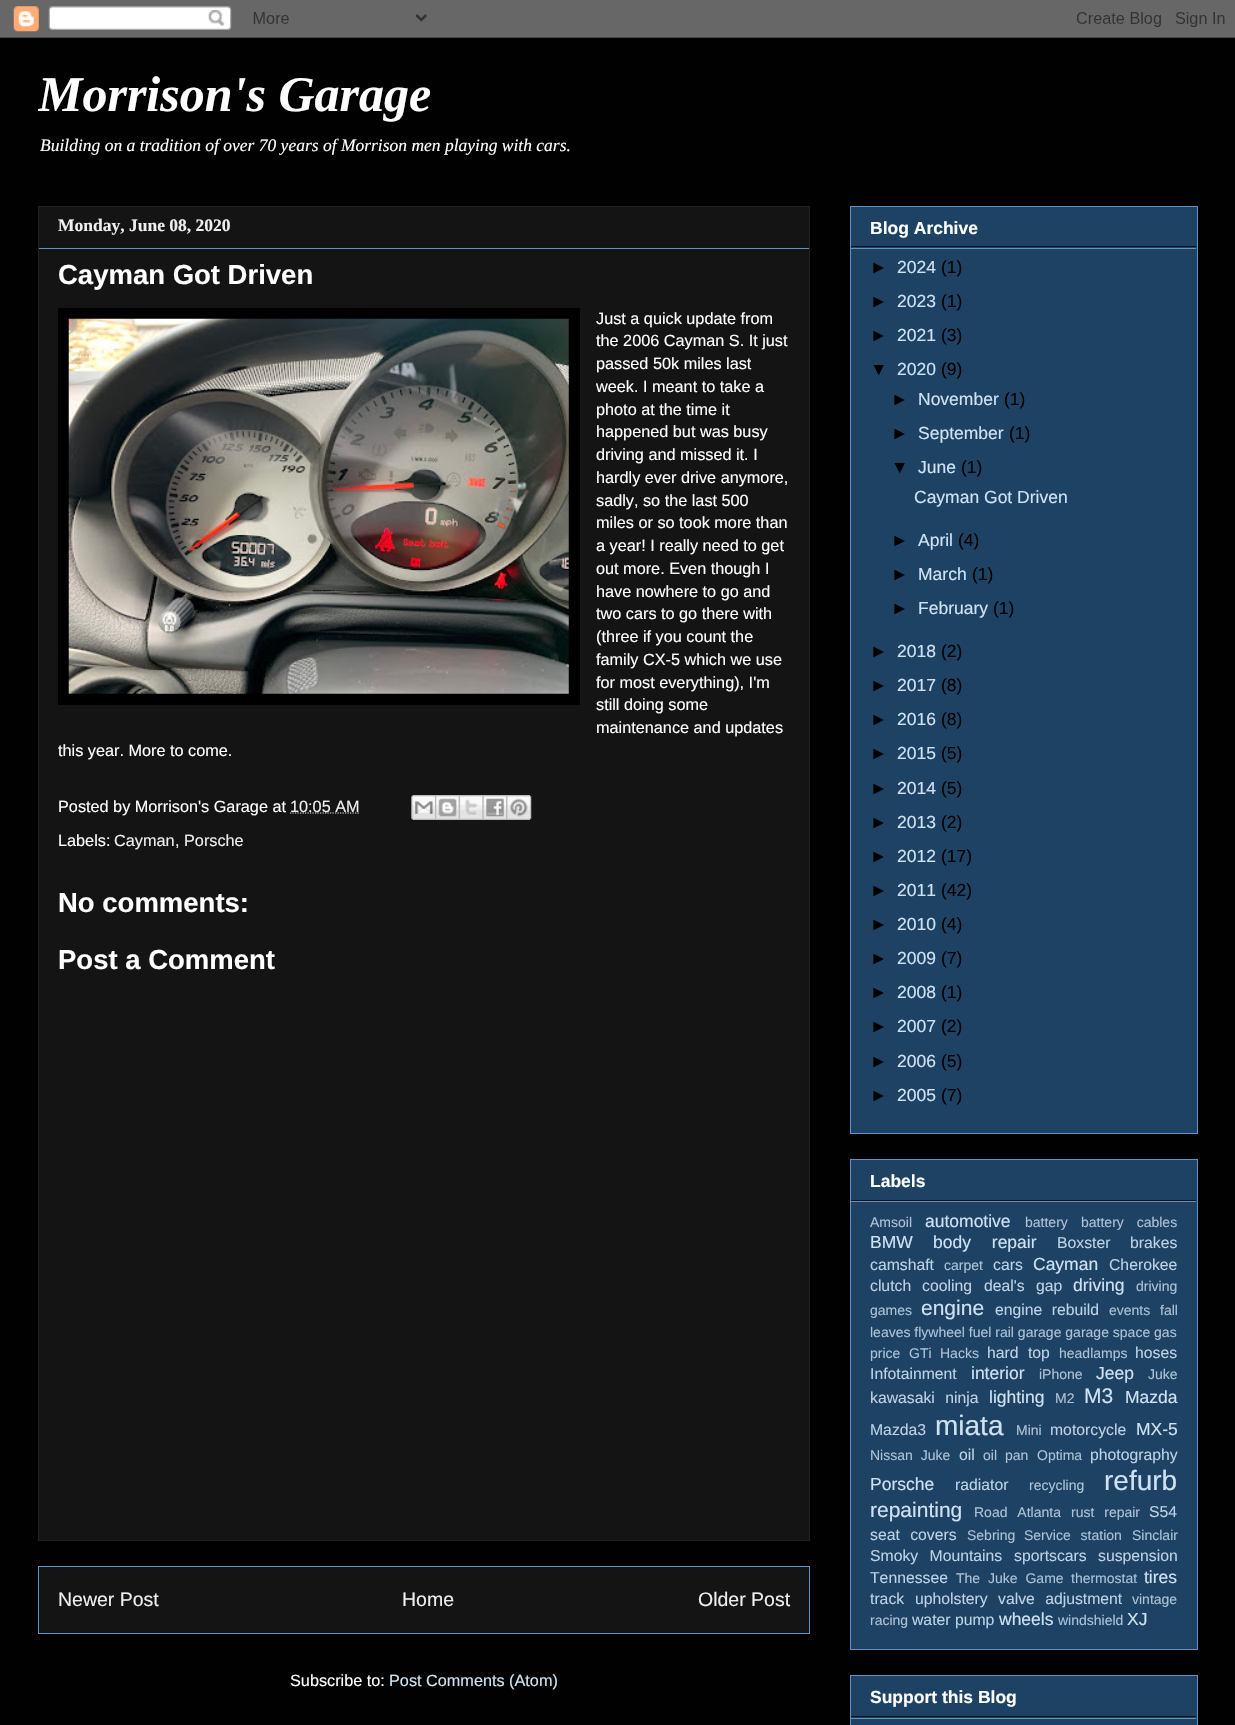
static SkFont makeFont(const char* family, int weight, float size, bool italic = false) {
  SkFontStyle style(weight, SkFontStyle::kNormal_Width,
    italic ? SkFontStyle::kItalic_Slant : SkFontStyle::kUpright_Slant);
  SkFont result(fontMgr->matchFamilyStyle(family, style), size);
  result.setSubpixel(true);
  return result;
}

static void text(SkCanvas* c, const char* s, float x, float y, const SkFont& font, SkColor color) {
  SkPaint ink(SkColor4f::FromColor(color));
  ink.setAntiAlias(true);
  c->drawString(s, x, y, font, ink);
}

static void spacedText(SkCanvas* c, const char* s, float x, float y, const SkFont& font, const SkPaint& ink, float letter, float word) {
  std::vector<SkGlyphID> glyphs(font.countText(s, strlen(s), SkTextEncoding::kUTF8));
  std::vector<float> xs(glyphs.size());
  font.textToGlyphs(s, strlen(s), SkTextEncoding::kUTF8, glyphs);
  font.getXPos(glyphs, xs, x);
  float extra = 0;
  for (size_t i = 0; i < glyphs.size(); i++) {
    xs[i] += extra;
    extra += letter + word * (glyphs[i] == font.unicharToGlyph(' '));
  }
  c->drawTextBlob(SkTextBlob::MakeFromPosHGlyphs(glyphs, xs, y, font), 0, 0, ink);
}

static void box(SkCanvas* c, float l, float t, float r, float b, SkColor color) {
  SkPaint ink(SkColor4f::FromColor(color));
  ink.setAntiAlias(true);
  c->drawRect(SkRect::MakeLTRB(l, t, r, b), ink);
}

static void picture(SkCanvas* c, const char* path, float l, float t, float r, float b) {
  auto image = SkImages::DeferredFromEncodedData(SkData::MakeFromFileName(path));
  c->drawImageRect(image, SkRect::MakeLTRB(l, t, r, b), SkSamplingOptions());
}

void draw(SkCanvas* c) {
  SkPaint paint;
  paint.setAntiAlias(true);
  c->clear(0xff010101);
  picture(c, "img_01.png", 0, 0, 1235, 38);
  c->save();
  c->clipRect(SkRect::MakeLTRB(38, 38, 1198, 169));
  SkFont face1 = makeFont("Liberation Serif", 700, 50, true);
  text(c, "Morrison's Garage", 38, 111, face1, 0xffffffff);
  c->restore();
  SkFont face2 = makeFont("Liberation Serif", 400, 17.5f, true);
  text(c, "Building on a tradition of over 70 years of Morrison men playing with cars.", 40, 151, face2, 0xffffffff);
  paint.setColor(0xff141414);
  c->drawRect(SkRect::MakeLTRB(38.5f, 206.5f, 809.5f, 1540.5f), paint);
  paint.setStyle(SkPaint::kStroke_Style);
  paint.setStrokeWidth(1);
  paint.setColor(0xff222222);
  c->drawRect(SkRect::MakeLTRB(38.5f, 206.5f, 809.5f, 1540.5f), paint);
  box(c, 39, 245, 809, 246, 0xff111111);
  SkFont face3 = makeFont("Liberation Serif", 700, 17.5f);
  text(c, "Monday, June 08, 2020", 58, 231, face3, 0xffeeeeee);
  box(c, 39, 248, 809, 249, 0xff5e94c6);
  SkFont face4 = makeFont("Liberation Sans", 700, 27.5f);
  text(c, "Cayman Got Driven", 58, 284, face4, 0xffffffff);
  box(c, 58, 308, 580, 705, 0xff000000);
  picture(c, "img_02.png", 68, 318, 569, 694);
  SkFont face5 = makeFont("Liberation Sans", 400, 16.25f);
  text(c, "Just a quick update from", 596, 324, face5, 0xffffffff);
  text(c, "the 2006 Cayman S. It just", 596, 346, face5, 0xffffffff);
  text(c, "passed 50k miles last", 596, 369, face5, 0xffffffff);
  text(c, "week. I meant to take a", 596, 392, face5, 0xffffffff);
  text(c, "photo at the time it", 596, 415, face5, 0xffffffff);
  text(c, "happened but was busy", 596, 437, face5, 0xffffffff);
  text(c, "driving and missed it. I", 596, 460, face5, 0xffffffff);
  text(c, "hardly ever drive anymore,", 596, 483, face5, 0xffffffff);
  text(c, "sadly, so the last 500", 596, 506, face5, 0xffffffff);
  text(c, "miles or so took more than", 596, 528, face5, 0xffffffff);
  text(c, "a year! I really need to get", 596, 551, face5, 0xffffffff);
  text(c, "out more. Even though I", 596, 574, face5, 0xffffffff);
  text(c, "have nowhere to go and", 596, 597, face5, 0xffffffff);
  text(c, "two cars to go there with", 596, 619, face5, 0xffffffff);
  text(c, "(three if you count the", 596, 642, face5, 0xffffffff);
  text(c, "family CX-5 which we use", 596, 665, face5, 0xffffffff);
  text(c, "for most everything), I'm", 596, 688, face5, 0xffffffff);
  text(c, "still doing some", 596, 710, face5, 0xffffffff);
  text(c, "maintenance and updates", 596, 733, face5, 0xffffffff);
  text(c, "this year. More to come.", 58, 756, face5, 0xffffffff);
  text(c, "Posted by Morrison's Garage at", 58, 812, face5, 0xffffffff);
  paint.setStrokeWidth(1.2f);
  paint.setColor(0xffeeeeee);
  paint.setPathEffect(SkDashPathEffect::Make({{1.25f, 1.25f}}, 0));
  c->drawPath(SkPathBuilder().moveTo(290, 813).lineTo(359.5f, 813).detach(), paint);
  paint.setPathEffect(nullptr);
  text(c, "10:05 AM", 290, 812, face5, 0xffeeeeee);
  picture(c, "img_03.png", 411, 795, 435, 820);
  picture(c, "img_04.png", 435, 795, 459, 820);
  picture(c, "img_05.png", 458, 795, 483, 820);
  picture(c, "img_06.png", 482, 795, 507, 820);
  picture(c, "img_07.png", 506, 795, 532, 820);
  text(c, "Labels:", 58, 846, face5, 0xffffffff);
  text(c, "Cayman", 114, 846, face5, 0xffeeeeee);
  text(c, ",", 175, 846, face5, 0xffffffff);
  text(c, "Porsche", 184, 846, face5, 0xffeeeeee);
  text(c, "No comments:", 58, 912, face4, 0xffffffff);
  text(c, "Post a Comment", 58, 969, face4, 0xffffffff);
  paint.setStyle(SkPaint::kFill_Style);
  paint.setColor(0xff141414);
  c->drawRect(SkRect::MakeLTRB(38.5f, 1566.5f, 809.5f, 1633.5f), paint);
  paint.setStyle(SkPaint::kStroke_Style);
  paint.setStrokeWidth(1);
  paint.setColor(0xff5e94c6);
  c->drawRect(SkRect::MakeLTRB(38.5f, 1566.5f, 809.5f, 1633.5f), paint);
  SkFont face6 = makeFont("Liberation Sans", 400, 19.5f);
  text(c, "Newer Post", 58, 1606, face6, 0xffeeeeee);
  text(c, "Home", 402, 1606, face6, 0xffeeeeee);
  text(c, "Older Post", 698, 1606, face6, 0xffeeeeee);
  text(c, "Subscribe to:", 290, 1686, face5, 0xffffffff);
  text(c, "Post Comments (Atom)", 389, 1686, face5, 0xffcfe2f3);
  paint.setStyle(SkPaint::kFill_Style);
  paint.setColor(0xff1e4263);
  c->drawRect(SkRect::MakeLTRB(850.5f, 206.5f, 1197.5f, 1133.5f), paint);
  paint.setStyle(SkPaint::kStroke_Style);
  paint.setColor(0xff5e94c6);
  c->drawRect(SkRect::MakeLTRB(850.5f, 206.5f, 1197.5f, 1133.5f), paint);
  box(c, 851, 246, 1196, 247, 0xff111111);
  SkFont face7 = makeFont("Liberation Sans", 700, 17.5f);
  text(c, "Blog Archive", 870, 234, face7, 0xffffffff);
  box(c, 851, 248, 1196, 249, 0xff5e94c6);
  SkFont face8 = makeFont("Liberation Sans", 400, 17.5f);
  text(c, "►", 870, 273, face8, 0xff000000);
  text(c, "2024", 897, 273, face8, 0xffcfe2f3);
  text(c, "(1)", 941, 273, face8, 0xff000000);
  text(c, "►", 870, 307, face8, 0xff000000);
  text(c, "2023", 897, 307, face8, 0xffcfe2f3);
  text(c, "(1)", 941, 307, face8, 0xff000000);
  text(c, "►", 870, 341, face8, 0xff000000);
  text(c, "2021", 897, 341, face8, 0xffcfe2f3);
  text(c, "(3)", 941, 341, face8, 0xff000000);
  text(c, "▼", 870, 375, face8, 0xff000000);
  text(c, "2020", 897, 375, face8, 0xffcfe2f3);
  text(c, "(9)", 941, 375, face8, 0xff000000);
  text(c, "►", 891, 405, face8, 0xff000000);
  text(c, "November", 918, 405, face8, 0xffcfe2f3);
  text(c, "(1)", 1004, 405, face8, 0xff000000);
  text(c, "►", 891, 439, face8, 0xff000000);
  text(c, "September", 918, 439, face8, 0xffcfe2f3);
  text(c, "(1)", 1009, 439, face8, 0xff000000);
  text(c, "▼", 891, 473, face8, 0xff000000);
  text(c, "June", 918, 473, face8, 0xffcfe2f3);
  text(c, "(1)", 961, 473, face8, 0xff000000);
  text(c, "Cayman Got Driven", 914, 503, face8, 0xffcfe2f3);
  text(c, "►", 891, 546, face8, 0xff000000);
  text(c, "April", 918, 546, face8, 0xffcfe2f3);
  text(c, "(4)", 958, 546, face8, 0xff000000);
  text(c, "►", 891, 580, face8, 0xff000000);
  text(c, "March", 918, 580, face8, 0xffcfe2f3);
  text(c, "(1)", 972, 580, face8, 0xff000000);
  text(c, "►", 891, 614, face8, 0xff000000);
  text(c, "February", 918, 614, face8, 0xffcfe2f3);
  text(c, "(1)", 993, 614, face8, 0xff000000);
  text(c, "►", 870, 657, face8, 0xff000000);
  text(c, "2018", 897, 657, face8, 0xffcfe2f3);
  text(c, "(2)", 941, 657, face8, 0xff000000);
  text(c, "►", 870, 691, face8, 0xff000000);
  text(c, "2017", 897, 691, face8, 0xffcfe2f3);
  text(c, "(8)", 941, 691, face8, 0xff000000);
  text(c, "►", 870, 725, face8, 0xff000000);
  text(c, "2016", 897, 725, face8, 0xffcfe2f3);
  text(c, "(8)", 941, 725, face8, 0xff000000);
  text(c, "►", 870, 759, face8, 0xff000000);
  text(c, "2015", 897, 759, face8, 0xffcfe2f3);
  text(c, "(5)", 941, 759, face8, 0xff000000);
  text(c, "►", 870, 794, face8, 0xff000000);
  text(c, "2014", 897, 794, face8, 0xffcfe2f3);
  text(c, "(5)", 941, 794, face8, 0xff000000);
  text(c, "►", 870, 828, face8, 0xff000000);
  text(c, "2013", 897, 828, face8, 0xffcfe2f3);
  text(c, "(2)", 941, 828, face8, 0xff000000);
  text(c, "►", 870, 862, face8, 0xff000000);
  text(c, "2012", 897, 862, face8, 0xffcfe2f3);
  text(c, "(17)", 941, 862, face8, 0xff000000);
  text(c, "►", 870, 896, face8, 0xff000000);
  text(c, "2011", 897, 896, face8, 0xffcfe2f3);
  text(c, "(42)", 941, 896, face8, 0xff000000);
  text(c, "►", 870, 930, face8, 0xff000000);
  text(c, "2010", 897, 930, face8, 0xffcfe2f3);
  text(c, "(4)", 941, 930, face8, 0xff000000);
  text(c, "►", 870, 964, face8, 0xff000000);
  text(c, "2009", 897, 964, face8, 0xffcfe2f3);
  text(c, "(7)", 941, 964, face8, 0xff000000);
  text(c, "►", 870, 998, face8, 0xff000000);
  text(c, "2008", 897, 998, face8, 0xffcfe2f3);
  text(c, "(1)", 941, 998, face8, 0xff000000);
  text(c, "►", 870, 1032, face8, 0xff000000);
  text(c, "2007", 897, 1032, face8, 0xffcfe2f3);
  text(c, "(2)", 941, 1032, face8, 0xff000000);
  text(c, "►", 870, 1067, face8, 0xff000000);
  text(c, "2006", 897, 1067, face8, 0xffcfe2f3);
  text(c, "(5)", 941, 1067, face8, 0xff000000);
  text(c, "►", 870, 1101, face8, 0xff000000);
  text(c, "2005", 897, 1101, face8, 0xffcfe2f3);
  text(c, "(7)", 941, 1101, face8, 0xff000000);
  paint.setStyle(SkPaint::kFill_Style);
  paint.setColor(0xff1e4263);
  c->drawRect(SkRect::MakeLTRB(850.5f, 1159.5f, 1197.5f, 1649.5f), paint);
  paint.setStyle(SkPaint::kStroke_Style);
  paint.setColor(0xff5e94c6);
  c->drawRect(SkRect::MakeLTRB(850.5f, 1159.5f, 1197.5f, 1649.5f), paint);
  box(c, 851, 1200, 1196, 1201, 0xff111111);
  text(c, "Labels", 870, 1187, face7, 0xffffffff);
  box(c, 851, 1201, 1196, 1202, 0xff5e94c6);
  SkFont face9 = makeFont("Liberation Sans", 400, 14);
  text(c, "Amsoil", 870, 1227, face9, 0xffacc2d6);
  text(c, "automotive", 925, 1227, face8, 0xffcfe2f3);
  text(c, "battery", 1025, 1227, face9, 0xffacc2d6);
  paint.setStyle(SkPaint::kFill_Style);
  paint.setColor(0xffacc2d6);
  spacedText(c, "battery cables", 1081, 1227, face9, paint, 0, 9);
  text(c, "BMW", 870, 1248, face8, 0xffcfe2f3);
  paint.setColor(0xffcfe2f3);
  spacedText(c, "body repair", 933, 1248, face8, paint, 0, 16);
  SkFont face10 = makeFont("Liberation Sans", 400, 15.75f);
  text(c, "Boxster", 1057, 1248, face10, 0xffbdd2e5);
  text(c, "brakes", 1130, 1248, face10, 0xffbdd2e5);
  text(c, "camshaft", 870, 1270, face10, 0xffbdd2e5);
  text(c, "carpet", 944, 1270, face9, 0xffacc2d6);
  text(c, "cars", 993, 1270, face10, 0xffbdd2e5);
  text(c, "Cayman", 1033, 1270, face8, 0xffcfe2f3);
  text(c, "Cherokee", 1109, 1270, face10, 0xffbdd2e5);
  text(c, "clutch", 870, 1291, face10, 0xffbdd2e5);
  text(c, "cooling", 922, 1291, face10, 0xffbdd2e5);
  paint.setColor(0xffbdd2e5);
  spacedText(c, "deal's gap", 984, 1291, face10, paint, 0, 7);
  text(c, "driving", 1073, 1291, face8, 0xffcfe2f3);
  text(c, "driving", 1136, 1291, face9, 0xffacc2d6);
  text(c, "games", 870, 1315, face9, 0xffacc2d6);
  SkFont face11 = makeFont("Liberation Sans", 400, 21);
  text(c, "engine", 921, 1315, face11, 0xffcfe2f3);
  spacedText(c, "engine rebuild", 995, 1315, face10, paint, 0, 5);
  text(c, "events", 1109, 1315, face9, 0xffacc2d6);
  text(c, "fall", 1160, 1315, face9, 0xffacc2d6);
  text(c, "leaves flywheel fuel rail garage garage space gas", 870, 1337, face9, 0xffacc2d6);
  text(c, "price", 870, 1358, face9, 0xffacc2d6);
  text(c, "GTi", 909, 1358, face9, 0xffacc2d6);
  text(c, "Hacks", 940, 1358, face9, 0xffacc2d6);
  spacedText(c, "hard top", 987, 1358, face10, paint, 0, 5);
  text(c, "headlamps", 1059, 1358, face9, 0xffacc2d6);
  text(c, "hoses", 1135, 1358, face10, 0xffbdd2e5);
  text(c, "Infotainment", 870, 1379, face10, 0xffbdd2e5);
  text(c, "interior", 971, 1379, face8, 0xffcfe2f3);
  text(c, "iPhone", 1039, 1379, face9, 0xffacc2d6);
  text(c, "Jeep", 1096, 1379, face8, 0xffcfe2f3);
  text(c, "Juke", 1148, 1379, face9, 0xffacc2d6);
  spacedText(c, "kawasaki ninja", 870, 1403, face10, paint, 0, 6);
  text(c, "lighting", 989, 1403, face8, 0xffcfe2f3);
  text(c, "M2", 1055, 1403, face9, 0xffacc2d6);
  text(c, "M3", 1084, 1403, face11, 0xffcfe2f3);
  text(c, "Mazda", 1125, 1403, face8, 0xffcfe2f3);
  text(c, "Mazda3", 870, 1435, face10, 0xffbdd2e5);
  SkFont face12 = makeFont("Liberation Sans", 400, 28);
  text(c, "miata", 935, 1435, face12, 0xffcfe2f3);
  text(c, "Mini", 1016, 1435, face9, 0xffacc2d6);
  text(c, "motorcycle", 1050, 1435, face10, 0xffbdd2e5);
  text(c, "MX-5", 1136, 1435, face8, 0xffcfe2f3);
  paint.setColor(0xffacc2d6);
  spacedText(c, "Nissan Juke", 870, 1460, face9, paint, 0, 4);
  text(c, "oil", 959, 1460, face10, 0xffbdd2e5);
  spacedText(c, "oil pan", 983, 1460, face9, paint, 0, 4);
  text(c, "Optima", 1037, 1460, face9, 0xffacc2d6);
  text(c, "photography", 1090, 1460, face10, 0xffbdd2e5);
  text(c, "Porsche", 870, 1490, face8, 0xffcfe2f3);
  text(c, "radiator", 955, 1490, face10, 0xffbdd2e5);
  text(c, "recycling", 1029, 1490, face9, 0xffacc2d6);
  text(c, "refurb", 1104, 1490, face12, 0xffcfe2f3);
  text(c, "repainting", 870, 1517, face11, 0xffcfe2f3);
  spacedText(c, "Road Atlanta", 974, 1517, face9, paint, 0, 6);
  spacedText(c, "rust repair", 1071, 1517, face9, paint, 0, 6);
  text(c, "S54", 1149, 1517, face10, 0xffbdd2e5);
  paint.setColor(0xffbdd2e5);
  spacedText(c, "seat covers", 870, 1540, face10, paint, 0, 6);
  text(c, "Sebring", 967, 1540, face9, 0xffacc2d6);
  paint.setColor(0xffacc2d6);
  spacedText(c, "Service station", 1024, 1540, face9, paint, 0, 6);
  text(c, "Sinclair", 1132, 1540, face9, 0xffacc2d6);
  paint.setColor(0xffbdd2e5);
  spacedText(c, "Smoky Mountains", 870, 1561, face10, paint, 0, 7);
  text(c, "sportscars", 1014, 1561, face10, 0xffbdd2e5);
  text(c, "suspension", 1098, 1561, face10, 0xffbdd2e5);
  text(c, "Tennessee", 870, 1583, face10, 0xffbdd2e5);
  paint.setColor(0xffacc2d6);
  spacedText(c, "The Juke Game", 956, 1583, face9, paint, 0, 4);
  text(c, "thermostat", 1071, 1583, face9, 0xffacc2d6);
  text(c, "tires", 1144, 1583, face8, 0xffcfe2f3);
  text(c, "track", 870, 1604, face10, 0xffbdd2e5);
  text(c, "upholstery", 915, 1604, face10, 0xffbdd2e5);
  paint.setColor(0xffbdd2e5);
  spacedText(c, "valve adjustment", 998, 1604, face10, paint, 0, 6);
  text(c, "vintage", 1132, 1604, face9, 0xffacc2d6);
  text(c, "racing", 870, 1625, face9, 0xffacc2d6);
  text(c, "water pump", 912, 1625, face10, 0xffbdd2e5);
  text(c, "wheels", 999, 1625, face8, 0xffcfe2f3);
  text(c, "windshield", 1058, 1625, face9, 0xffacc2d6);
  text(c, "XJ", 1127, 1625, face8, 0xffcfe2f3);
  paint.setColor(0xff1e4263);
  c->drawRect(SkRect::MakeLTRB(850.5f, 1675.5f, 1197.5f, 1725.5f), paint);
  paint.setStyle(SkPaint::kStroke_Style);
  paint.setColor(0xff5e94c6);
  c->drawRect(SkRect::MakeLTRB(850.5f, 1675.5f, 1197.5f, 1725.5f), paint);
  box(c, 851, 1716, 1196, 1717, 0xff111111);
  text(c, "Support this Blog", 870, 1703, face7, 0xffffffff);
  box(c, 851, 1718, 1196, 1719, 0xff5e94c6);
}
